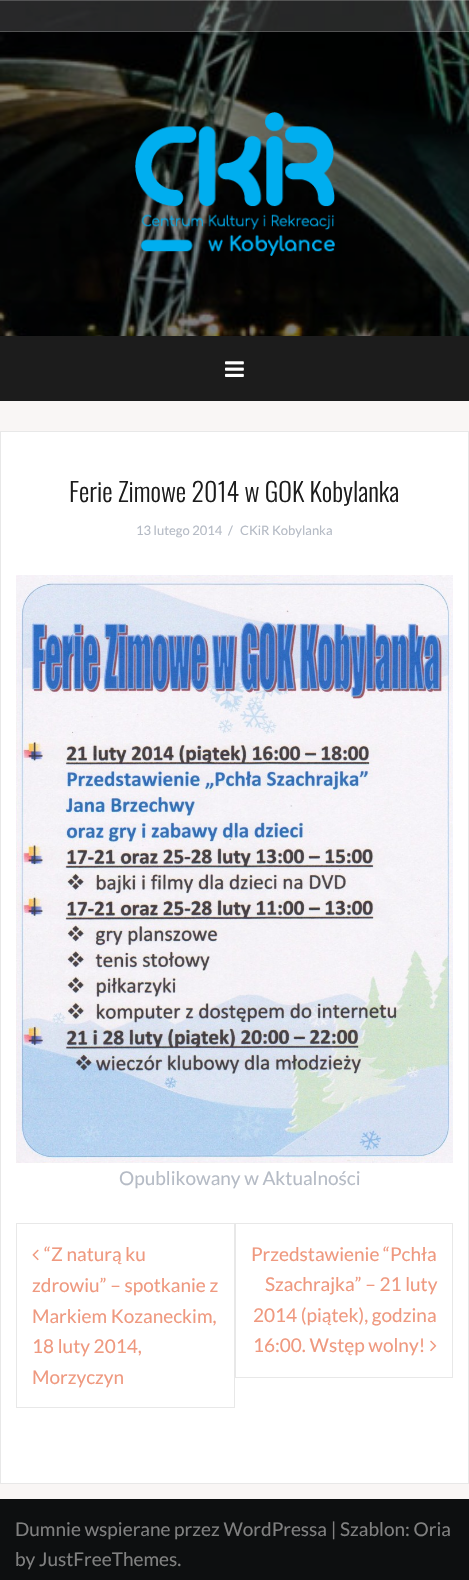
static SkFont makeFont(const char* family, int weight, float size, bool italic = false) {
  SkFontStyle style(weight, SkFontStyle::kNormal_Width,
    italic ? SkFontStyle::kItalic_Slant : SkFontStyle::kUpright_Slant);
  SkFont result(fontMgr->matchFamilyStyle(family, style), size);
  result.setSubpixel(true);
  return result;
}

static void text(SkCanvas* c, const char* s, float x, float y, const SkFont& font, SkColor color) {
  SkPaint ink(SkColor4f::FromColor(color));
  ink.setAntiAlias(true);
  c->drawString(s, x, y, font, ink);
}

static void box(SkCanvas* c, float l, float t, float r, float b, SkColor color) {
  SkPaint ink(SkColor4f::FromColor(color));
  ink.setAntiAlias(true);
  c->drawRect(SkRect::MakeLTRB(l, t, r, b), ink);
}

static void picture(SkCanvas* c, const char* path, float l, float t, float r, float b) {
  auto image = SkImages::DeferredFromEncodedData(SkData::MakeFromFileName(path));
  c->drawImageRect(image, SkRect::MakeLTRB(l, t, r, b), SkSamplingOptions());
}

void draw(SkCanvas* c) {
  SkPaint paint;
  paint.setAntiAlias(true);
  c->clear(0xfff9f6f5);
  picture(c, "img_01.png", 0, 0, 469, 336);
  box(c, 0, 0, 469, 32, 0x26ffffff);
  box(c, 0, 0, 469, 1, 0x33ffffff);
  box(c, 0, 31, 469, 32, 0x33ffffff);
  picture(c, "img_02.png", 135, 112, 335, 256);
  box(c, 0, 336, 469, 401, 0xff1c1c1c);
  picture(c, "img_03.png", 225, 361, 244, 377);
  paint.setColor(0xffffffff);
  c->drawRect(SkRect::MakeLTRB(0.5f, 431.5f, 468.5f, 1483.5f), paint);
  paint.setStyle(SkPaint::kStroke_Style);
  paint.setStrokeWidth(1);
  paint.setColor(0xffe8e8e8);
  c->drawRect(SkRect::MakeLTRB(0.5f, 431.5f, 468.5f, 1483.5f), paint);
  SkFont face1 = makeFont("Oswald", 300, 26);
  text(c, "Ferie Zimowe 2014 w GOK Kobylanka", 69, 502, face1, 0xff1c1c1c);
  SkFont face2 = makeFont("Lato", 400, 13);
  text(c, "13 lutego 2014", 136, 535, face2, 0xffb5bbc5);
  text(c, "/", 228, 535, face2, 0xffb5bbc5);
  text(c, "CKiR Kobylanka", 240, 535, face2, 0xffb5bbc5);
  picture(c, "img_04.png", 16, 575, 453, 1163);
  SkFont face3 = makeFont("Lato", 400, 19);
  text(c, "Opublikowany w Aktualności", 119, 1185, face3, 0xffb5bbc5);
  c->drawRect(SkRect::MakeLTRB(16.5f, 1223.5f, 234.5f, 1407.5f), paint);
  picture(c, "img_05.png", 32, 1249, 39, 1261);
  text(c, "“Z naturą ku", 44, 1261, face3, 0xffef997f);
  text(c, "zdrowiu” – spotkanie z", 32, 1292, face3, 0xffef997f);
  text(c, "Markiem Kozaneckim,", 32, 1323, face3, 0xffef997f);
  text(c, "18 luty 2014,", 32, 1353, face3, 0xffef997f);
  text(c, "Morzyczyn", 32, 1384, face3, 0xffef997f);
  c->drawRect(SkRect::MakeLTRB(235.5f, 1223.5f, 452.5f, 1377.5f), paint);
  text(c, "Przedstawienie “Pchła", 251, 1261, face3, 0xffef997f);
  text(c, "Szachrajka” – 21 luty", 265, 1291, face3, 0xffef997f);
  text(c, "2014 (piątek), godzina", 253, 1322, face3, 0xffef997f);
  text(c, "16:00. Wstęp wolny!", 253, 1352, face3, 0xffef997f);
  picture(c, "img_06.png", 430, 1340, 437, 1352);
  box(c, 0, 1499, 469, 1580, 0xff0d0f10);
  text(c, "Dumnie wspierane przez WordPressa | Szablon: Oria", 15, 1536, face3, 0xff808080);
  text(c, "by JustFreeThemes.", 15, 1566, face3, 0xff808080);
}
